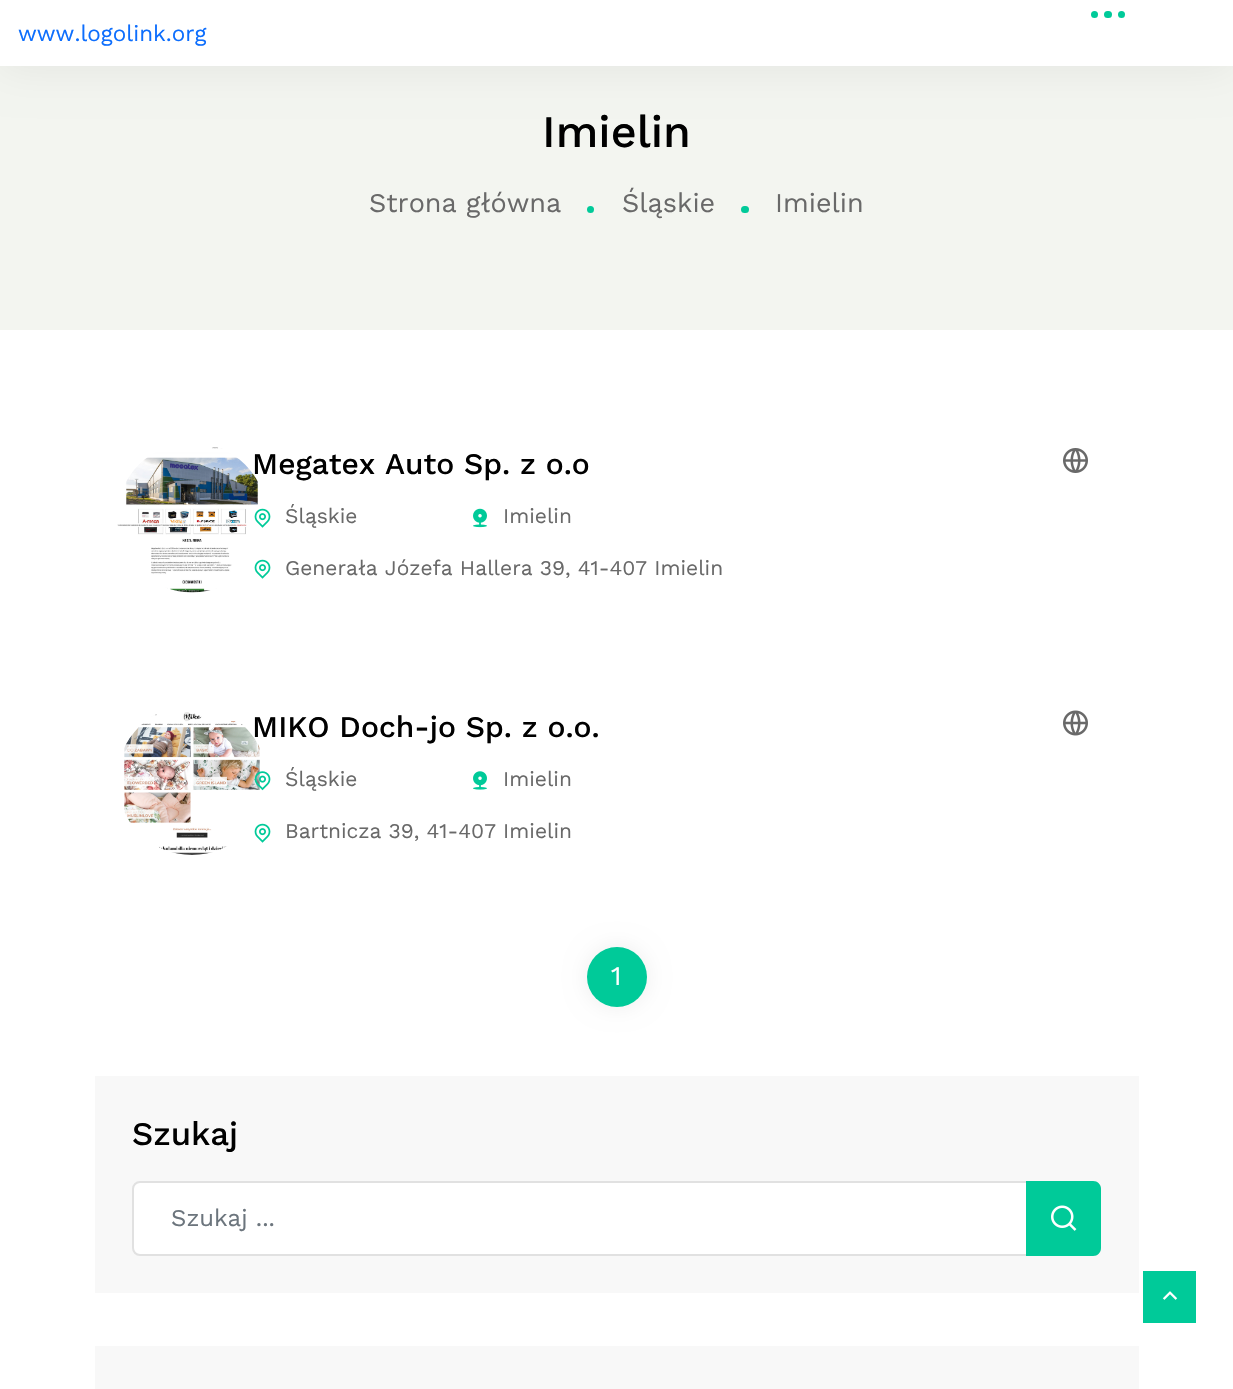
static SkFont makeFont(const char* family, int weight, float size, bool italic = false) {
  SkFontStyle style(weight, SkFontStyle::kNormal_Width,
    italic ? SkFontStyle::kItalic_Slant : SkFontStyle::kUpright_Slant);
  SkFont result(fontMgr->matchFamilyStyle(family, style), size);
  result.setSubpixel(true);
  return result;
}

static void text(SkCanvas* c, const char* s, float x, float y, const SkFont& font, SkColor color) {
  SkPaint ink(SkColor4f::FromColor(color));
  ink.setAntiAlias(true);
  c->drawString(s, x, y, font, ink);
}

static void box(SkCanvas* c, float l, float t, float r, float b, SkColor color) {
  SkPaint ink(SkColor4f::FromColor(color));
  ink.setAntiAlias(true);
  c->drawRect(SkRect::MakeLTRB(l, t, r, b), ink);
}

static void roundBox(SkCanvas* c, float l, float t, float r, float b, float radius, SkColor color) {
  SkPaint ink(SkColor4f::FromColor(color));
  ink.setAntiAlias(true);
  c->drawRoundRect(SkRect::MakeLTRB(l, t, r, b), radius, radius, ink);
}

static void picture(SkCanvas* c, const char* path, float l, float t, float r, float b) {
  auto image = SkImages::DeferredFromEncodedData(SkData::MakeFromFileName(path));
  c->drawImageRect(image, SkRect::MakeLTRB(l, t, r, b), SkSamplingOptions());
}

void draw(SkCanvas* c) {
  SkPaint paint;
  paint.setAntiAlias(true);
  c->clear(0xffffffff);
  box(c, 0, 66, 1233, 330, 0xfff3f5f0);
  paint.setColor(0x0f000000);
  paint.setMaskFilter(SkMaskFilter::MakeBlur(kNormal_SkBlurStyle, 21));
  c->drawRect(SkRect::MakeLTRB(0, 3, 1233, 69), paint);
  paint.setMaskFilter(nullptr);
  box(c, 0, 0, 1233, 66, 0xffffffff);
  paint.setColor(0xff00ca99);
  c->drawCircle(1094.5f, 14.5f, 3.5f, paint);
  roundBox(c, 1104, 11, 1112, 18, 3.5f, 0xff00ca99);
  c->drawCircle(1121.5f, 14.5f, 3.5f, paint);
  SkFont face1 = makeFont("Work Sans", 400, 22.5f);
  text(c, "www.logolink.org", 18, 41, face1, 0xff0d6efd);
  SkFont face2 = makeFont("Work Sans", 500, 45);
  text(c, "Imielin", 542, 147, face2, 0xff000000);
  SkFont face3 = makeFont("Work Sans", 400, 27);
  text(c, "Strona główna", 369, 212, face3, 0xff696969);
  c->drawCircle(590.5f, 209.5f, 3.5f, paint);
  text(c, "Śląskie", 622, 212, face3, 0xff696969);
  roundBox(c, 741, 206, 749, 213, 3.5f, 0xff00ca99);
  text(c, "Imielin", 775, 212, face3, 0xff696969);
  SkFont face4 = makeFont("Work Sans", 500, 30);
  text(c, "Megatex Auto Sp. z o.o", 252, 474, face4, 0xff000000);
  picture(c, "img_01.png", 117, 447, 258, 593);
  picture(c, "img_02.png", 254, 508, 271, 528);
  SkFont face5 = makeFont("Work Sans", 400, 21);
  text(c, "Śląskie", 285, 523, face5, 0xff696969);
  picture(c, "img_03.png", 473, 508, 487, 528);
  text(c, "Imielin", 503, 523, face5, 0xff696969);
  picture(c, "img_02.png", 254, 559, 271, 579);
  text(c, "Generała Józefa Hallera 39, 41-407 Imielin", 285, 575, face5, 0xff696969);
  picture(c, "img_04.png", 1063, 448, 1088, 473);
  text(c, "MIKO Doch-jo Sp. z o.o.", 252, 737, face4, 0xff000000);
  picture(c, "img_05.png", 124, 712, 260, 855);
  picture(c, "img_06.png", 254, 771, 271, 791);
  text(c, "Śląskie", 285, 786, face5, 0xff696969);
  picture(c, "img_07.png", 473, 771, 487, 790);
  text(c, "Imielin", 503, 786, face5, 0xff696969);
  picture(c, "img_02.png", 254, 823, 271, 843);
  text(c, "Bartnicza 39, 41-407 Imielin", 285, 838, face5, 0xff696969);
  picture(c, "img_08.png", 1063, 710, 1088, 736);
  paint.setColor(0x12000000);
  paint.setMaskFilter(SkMaskFilter::MakeBlur(kNormal_SkBlurStyle, 11));
  c->drawRoundRect(SkRect::MakeLTRB(587, 947, 647, 1007), 30, 30, paint);
  paint.setMaskFilter(nullptr);
  paint.setColor(0xff00ca99);
  c->drawCircle(617, 977, 30, paint);
  text(c, "1", 611, 985, face3, 0xffffffff);
  box(c, 95, 1076, 1139, 1293, 0xfff8f8f8);
  SkFont face6 = makeFont("Work Sans", 500, 33);
  text(c, "Szukaj", 132, 1145, face6, 0xff000000);
  paint.setColor(0xffffffff);
  c->drawRoundRect(SkRect::MakeLTRB(133, 1182, 1100, 1255), 7, 7, paint);
  paint.setStyle(SkPaint::kStroke_Style);
  paint.setStrokeWidth(2);
  paint.setColor(0xffe1e1e1);
  c->drawRoundRect(SkRect::MakeLTRB(133, 1182, 1100, 1255), 7, 7, paint);
  SkFont face7 = makeFont("Work Sans", 400, 24);
  text(c, "Szukaj ...", 171, 1226, face7, 0xff6c757d);
  paint.setStyle(SkPaint::kFill_Style);
  paint.setColor(0xff00ca99);
  c->drawPath(SkPathBuilder().moveTo(1026, 1181).lineTo(1093, 1181).cubicTo(1097.5f, 1181, 1101, 1184.5f, 1101, 1189).lineTo(1101, 1248).cubicTo(1101, 1252.5f, 1097.5f, 1256, 1093, 1256).lineTo(1026, 1256).close().detach(), paint);
  picture(c, "img_09.png", 1051, 1205, 1077, 1231);
  box(c, 95, 1346, 1139, 1389, 0xfff8f8f8);
  box(c, 1143, 1271, 1196, 1323, 0xff00ca99);
  picture(c, "img_10.png", 1162, 1291, 1178, 1300);
}
